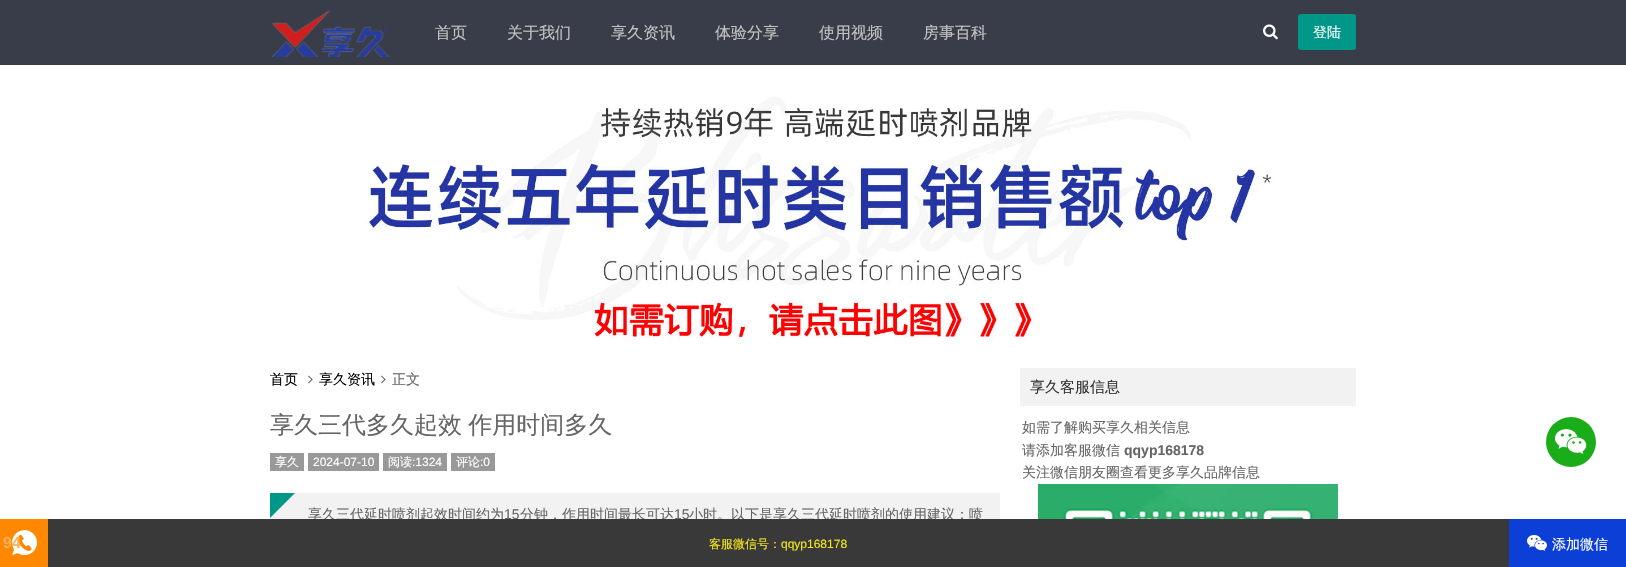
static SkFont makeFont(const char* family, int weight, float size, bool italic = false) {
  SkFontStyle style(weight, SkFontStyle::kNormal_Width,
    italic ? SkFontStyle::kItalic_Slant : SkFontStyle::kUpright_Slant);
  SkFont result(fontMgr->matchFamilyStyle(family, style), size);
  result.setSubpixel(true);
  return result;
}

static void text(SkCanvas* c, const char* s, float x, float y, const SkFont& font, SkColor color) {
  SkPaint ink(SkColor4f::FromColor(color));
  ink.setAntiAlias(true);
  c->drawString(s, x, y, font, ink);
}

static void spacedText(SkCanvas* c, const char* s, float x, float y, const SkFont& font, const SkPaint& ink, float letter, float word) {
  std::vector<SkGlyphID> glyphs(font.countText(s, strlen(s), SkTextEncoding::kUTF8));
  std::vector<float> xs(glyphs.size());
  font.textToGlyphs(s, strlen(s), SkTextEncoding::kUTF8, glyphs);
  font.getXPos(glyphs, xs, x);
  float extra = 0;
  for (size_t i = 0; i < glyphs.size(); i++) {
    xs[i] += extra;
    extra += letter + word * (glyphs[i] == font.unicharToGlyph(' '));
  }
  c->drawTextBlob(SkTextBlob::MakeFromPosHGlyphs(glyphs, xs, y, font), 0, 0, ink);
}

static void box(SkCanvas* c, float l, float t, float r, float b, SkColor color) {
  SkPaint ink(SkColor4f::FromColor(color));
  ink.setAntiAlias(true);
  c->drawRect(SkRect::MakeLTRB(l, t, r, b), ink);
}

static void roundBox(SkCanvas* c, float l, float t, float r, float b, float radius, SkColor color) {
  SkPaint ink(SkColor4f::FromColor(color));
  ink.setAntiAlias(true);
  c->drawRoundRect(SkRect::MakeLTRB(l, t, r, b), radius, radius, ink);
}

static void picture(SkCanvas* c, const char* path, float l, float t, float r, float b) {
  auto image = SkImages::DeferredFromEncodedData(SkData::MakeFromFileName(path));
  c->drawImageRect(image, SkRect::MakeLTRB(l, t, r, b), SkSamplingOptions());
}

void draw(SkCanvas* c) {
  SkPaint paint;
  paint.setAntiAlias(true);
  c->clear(0xffffffff);
  box(c, 0, 0, 1626, 65, 0xff393d49);
  picture(c, "img_01.png", 272, 10, 390, 58);
  SkFont face1 = makeFont("WenQuanYi Zen Hei", 500, 16);
  text(c, "首页", 435, 38, face1, 0xffc2c2c2);
  text(c, "关于我们", 507, 38, face1, 0xffc2c2c2);
  text(c, "享久资讯", 611, 38, face1, 0xffc2c2c2);
  text(c, "体验分享", 715, 38, face1, 0xffc2c2c2);
  text(c, "使用视频", 819, 38, face1, 0xffc2c2c2);
  text(c, "房事百科", 923, 38, face1, 0xffc2c2c2);
  picture(c, "img_02.png", 1263, 24, 1278, 40);
  roundBox(c, 1298, 14, 1356, 50, 3, 0xff009688);
  SkFont face2 = makeFont("WenQuanYi Zen Hei", 500, 14);
  text(c, "登陆", 1313, 37, face2, 0xffffffff);
  picture(c, "img_03.png", 365, 97, 1274, 339);
  text(c, "首页", 270, 384, face2, 0xff000000);
  picture(c, "img_04.png", 308, 375, 313, 384);
  text(c, "享久资讯", 319, 384, face2, 0xff000000);
  picture(c, "img_04.png", 381, 375, 386, 384);
  text(c, "正文", 392, 384, face2, 0xff666666);
  SkFont face3 = makeFont("WenQuanYi Zen Hei", 500, 24);
  paint.setColor(0xff666666);
  spacedText(c, "享久三代多久起效 作用时间多久", 270, 433, face3, paint, 0, -1);
  box(c, 270, 453, 304, 471, 0xff999999);
  SkFont face4 = makeFont("WenQuanYi Zen Hei", 500, 12);
  text(c, "享久", 275, 466, face4, 0xffffffff);
  box(c, 308, 453, 379, 471, 0xff999999);
  SkFont face5 = makeFont("Liberation Sans", 400, 12);
  text(c, "2024-07-10", 313, 466, face5, 0xffffffff);
  box(c, 383, 453, 447, 471, 0xff999999);
  text(c, "阅读", 388, 466, face4, 0xffffffff);
  text(c, ":1324", 412, 466, face5, 0xffffffff);
  box(c, 451, 453, 495, 471, 0xff999999);
  text(c, "评论", 456, 466, face4, 0xffffffff);
  text(c, ":0", 480, 466, face5, 0xffffffff);
  box(c, 270, 493, 1000, 519, 0xfff2f2f2);
  paint.setColor(0xff009688);
  c->drawPath(SkPathBuilder().moveTo(270, 493).lineTo(295, 493).lineTo(270, 518).close().detach(), paint);
  text(c, "享久三代延时喷剂起效时间约为", 308, 519, face2, 0xff666666);
  SkFont face6 = makeFont("Liberation Sans", 400, 14);
  text(c, "15", 504, 519, face6, 0xff666666);
  text(c, "分钟，作用时间最长可达", 520, 519, face2, 0xff666666);
  text(c, "15", 674, 519, face6, 0xff666666);
  text(c, "小时。以下是享久三代延时喷剂的使用建议：喷", 689, 519, face2, 0xff666666);
  box(c, 1020, 368, 1356, 406, 0xfff2f2f2);
  SkFont face7 = makeFont("WenQuanYi Zen Hei", 500, 15);
  text(c, "享久客服信息", 1030, 392, face7, 0xff333333);
  text(c, "如需了解购买享久相关信息", 1022, 432, face2, 0xff666666);
  text(c, "请添加客服微信", 1022, 455, face2, 0xff666666);
  SkFont face8 = makeFont("Liberation Sans", 700, 14);
  text(c, "qqyp168178", 1124, 455, face8, 0xff666666);
  text(c, "关注微信朋友圈查看更多享久品牌信息", 1022, 477, face2, 0xff666666);
  picture(c, "img_05.png", 1038, 484, 1338, 519);
  paint.setColor(0xff1aad19);
  c->drawCircle(1571, 442, 25, paint);
  picture(c, "img_06.png", 1555, 429, 1587, 454);
  box(c, 48, 519, 1509, 567, 0xff393939);
  box(c, 0, 519, 48, 567, 0xffff8800);
  picture(c, "img_07.png", 12, 530, 37, 556);
  SkFont face9 = makeFont("Liberation Sans", 700, 16);
  text(c, "94", 3, 548, face9, 0xffffaf54);
  text(c, "客服微信号：", 709, 548, face4, 0xfff4e41c);
  text(c, "qqyp168178", 781, 548, face5, 0xfff4e41c);
  box(c, 1509, 519, 1626, 567, 0xff0c3fd6);
  picture(c, "img_08.png", 1527, 535, 1547, 551);
  text(c, "添加微信", 1552, 549, face2, 0xffffffff);
}
